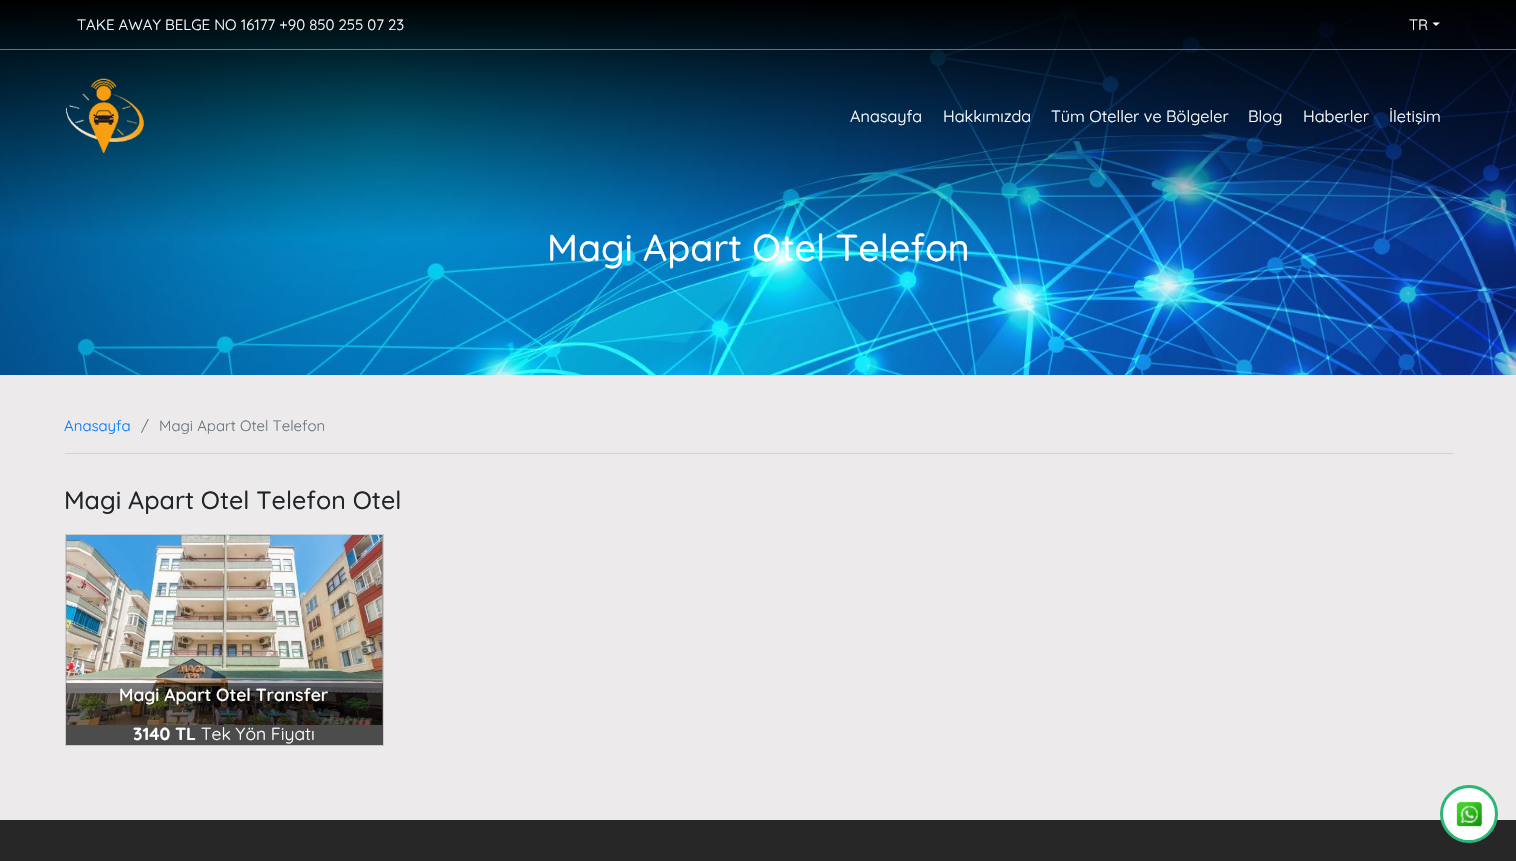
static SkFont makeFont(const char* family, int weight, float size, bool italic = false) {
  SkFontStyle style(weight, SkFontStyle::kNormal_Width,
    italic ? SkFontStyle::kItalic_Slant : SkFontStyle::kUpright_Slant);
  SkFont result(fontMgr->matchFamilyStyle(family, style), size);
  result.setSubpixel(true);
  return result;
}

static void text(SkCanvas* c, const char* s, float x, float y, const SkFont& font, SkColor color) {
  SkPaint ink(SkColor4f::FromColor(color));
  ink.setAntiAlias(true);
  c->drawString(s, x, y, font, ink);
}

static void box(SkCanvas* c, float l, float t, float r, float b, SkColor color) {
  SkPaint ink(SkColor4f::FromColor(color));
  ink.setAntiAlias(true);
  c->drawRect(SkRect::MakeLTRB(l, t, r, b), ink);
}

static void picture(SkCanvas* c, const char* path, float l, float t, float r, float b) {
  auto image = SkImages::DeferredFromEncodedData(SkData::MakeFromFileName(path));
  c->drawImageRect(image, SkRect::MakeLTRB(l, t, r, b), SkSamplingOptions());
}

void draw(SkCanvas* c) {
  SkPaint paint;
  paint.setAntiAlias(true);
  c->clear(0xffeceaea);
  picture(c, "img_02.png", 0, 0, 1516, 375);
  box(c, 0, 49, 1516, 50, 0x66ffffff);
  SkFont face1 = makeFont("Quicksand", 400, 15);
  text(c, "TAKE AWAY BELGE NO 16177 +90 850 255 07 23", 77, 30, face1, 0xffffffff);
  text(c, "TR", 1409, 30, face1, 0xffffffff);
  paint.setColor(0xffffffff);
  c->drawPath(SkPathBuilder().moveTo(1432.5f, 22.5f).lineTo(1440, 22.5f).lineTo(1436, 26).close().detach(), paint);
  picture(c, "img_01.png", 66, 78, 144, 154);
  SkFont face2 = makeFont("Quicksand", 400, 16.25f);
  text(c, "Anasayfa", 850, 122, face2, 0xffffffff);
  text(c, "Hakkımızda", 943, 122, face2, 0xffffffff);
  text(c, "Tüm Oteller ve Bölgeler", 1051, 122, face2, 0xffffffff);
  text(c, "Blog", 1248, 122, face2, 0xffffffff);
  text(c, "Haberler", 1303, 122, face2, 0xffffffff);
  text(c, "İletişim", 1389, 122, face2, 0xffffffff);
  SkFont face3 = makeFont("Quicksand", 500, 37.5f);
  text(c, "Magi Apart Otel Telefon", 547, 261, face3, 0xffffffff);
  box(c, 65, 453, 1453, 454, 0xffd4d3d3);
  text(c, "Anasayfa", 64, 431, face1, 0xff007bff);
  text(c, "/", 141, 431, face1, 0xff6c757d);
  text(c, "Magi Apart Otel Telefon", 159, 431, face1, 0xff6c757d);
  SkFont face4 = makeFont("Quicksand", 500, 25);
  text(c, "Magi Apart Otel Telefon Otel", 64, 509, face4, 0xff212529);
  paint.setColor(0xff999999);
  c->drawRect(SkRect::MakeLTRB(65.5f, 534.5f, 383.5f, 745.5f), paint);
  paint.setStyle(SkPaint::kStroke_Style);
  paint.setStrokeWidth(1);
  paint.setColor(0xffcccccc);
  c->drawRect(SkRect::MakeLTRB(65.5f, 534.5f, 383.5f, 745.5f), paint);
  picture(c, "img_03.png", 66, 535, 383, 725);
  box(c, 66, 683, 383, 745, 0x80000000);
  SkFont face5 = makeFont("Quicksand", 600, 17.5f);
  text(c, "Magi Apart Otel Transfer", 119, 701, face5, 0xffffffff);
  SkFont face6 = makeFont("Quicksand", 700, 17.5f);
  text(c, "3140 TL", 133, 740, face6, 0xffffffff);
  SkFont face7 = makeFont("Quicksand", 400, 17.5f);
  text(c, "Tek Yön Fiyatı", 201, 740, face7, 0xffffffff);
  box(c, 0, 820, 1516, 861, 0xff272727);
  paint.setStyle(SkPaint::kFill_Style);
  paint.setColor(0xffffffff);
  c->drawCircle(1469, 814, 27.5f, paint);
  paint.setStyle(SkPaint::kStroke_Style);
  paint.setStrokeWidth(3);
  paint.setColor(0xff2ab674);
  c->drawCircle(1469, 814, 27.5f, paint);
  picture(c, "img_04.png", 1457, 802, 1482, 826);
  picture(c, "img_05.png", 1456, 801, 1482, 827);
}
